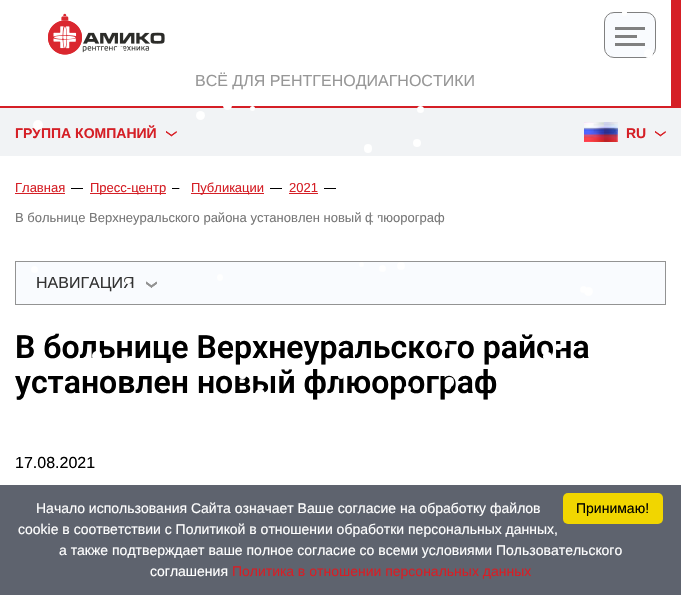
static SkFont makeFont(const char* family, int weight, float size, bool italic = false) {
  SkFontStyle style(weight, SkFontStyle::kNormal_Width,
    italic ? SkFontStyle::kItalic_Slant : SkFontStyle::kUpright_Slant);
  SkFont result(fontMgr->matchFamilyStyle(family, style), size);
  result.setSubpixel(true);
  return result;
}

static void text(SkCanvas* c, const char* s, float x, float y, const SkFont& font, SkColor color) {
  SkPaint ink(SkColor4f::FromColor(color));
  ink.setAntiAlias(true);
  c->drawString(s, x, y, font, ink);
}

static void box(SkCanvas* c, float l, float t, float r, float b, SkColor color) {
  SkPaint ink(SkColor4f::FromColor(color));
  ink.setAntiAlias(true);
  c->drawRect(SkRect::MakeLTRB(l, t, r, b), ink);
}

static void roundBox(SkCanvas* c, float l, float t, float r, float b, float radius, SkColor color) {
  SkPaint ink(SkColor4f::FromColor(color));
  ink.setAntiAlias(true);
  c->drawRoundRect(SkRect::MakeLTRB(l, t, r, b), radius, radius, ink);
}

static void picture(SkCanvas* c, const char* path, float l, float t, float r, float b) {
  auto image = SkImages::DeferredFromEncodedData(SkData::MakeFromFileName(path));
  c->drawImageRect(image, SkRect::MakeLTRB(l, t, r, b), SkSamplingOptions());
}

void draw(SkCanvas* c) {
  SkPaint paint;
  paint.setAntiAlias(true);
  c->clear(0xffffffff);
  paint.setColor(0xfff9fbfe);
  c->drawRoundRect(SkRect::MakeLTRB(604.5f, 12.5f, 655.5f, 57.5f), 9.5f, 9.5f, paint);
  paint.setStyle(SkPaint::kStroke_Style);
  paint.setStrokeWidth(1);
  paint.setColor(0xff808080);
  c->drawRoundRect(SkRect::MakeLTRB(604.5f, 12.5f, 655.5f, 57.5f), 9.5f, 9.5f, paint);
  roundBox(c, 622, 10, 627, 16, 2.5f, 0xffffffff);
  picture(c, "img_01.png", 48, 13, 165, 55);
  paint.setStyle(SkPaint::kFill_Style);
  paint.setColor(0xffffffff);
  c->drawCircle(119.5f, 50.5f, 4.5f, paint);
  c->drawCircle(648.5f, 53.5f, 4.5f, paint);
  box(c, 671, 0, 681, 106, 0xffd51f26);
  box(c, 0, 106, 681, 108, 0xffd51f26);
  box(c, 615, 35, 637, 38, 0xff808080);
  box(c, 615, 27, 645, 30, 0xff808080);
  box(c, 615, 43, 645, 46, 0xff808080);
  SkFont face1 = makeFont("Liberation Sans", 400, 16);
  text(c, "ВСЁ ДЛЯ РЕНТГЕНОДИАГНОСТИКИ", 195, 86, face1, 0xff979797);
  box(c, 0, 108, 681, 156, 0xfff1f3f5);
  roundBox(c, 223, 100, 232, 110, 4.5f, 0xffffffff);
  c->drawCircle(252.5f, 108.5f, 2.5f, paint);
  c->drawCircle(420.5f, 109.5f, 3.5f, paint);
  c->drawCircle(200.5f, 115.5f, 4.5f, paint);
  SkFont face2 = makeFont("Liberation Sans", 700, 14);
  text(c, "ГРУППА КОМПАНИЙ", 15, 138, face2, 0xffd51f26);
  c->drawCircle(38, 125, 5, paint);
  picture(c, "img_02.png", 166, 131, 177, 137);
  picture(c, "img_03.png", 584, 122, 618, 142);
  text(c, "RU", 626, 138, face2, 0xffd51f26);
  picture(c, "img_02.png", 655, 131, 666, 137);
  c->drawCircle(417, 143, 4, paint);
  roundBox(c, 364, 144, 372, 153, 4, 0xffffffff);
  SkFont face3 = makeFont("Liberation Sans", 400, 13);
  text(c, "Главная", 15, 192, face3, 0xffd51f26);
  box(c, 15, 193, 65, 194, 0xffd51f26);
  box(c, 71, 188, 83, 189, 0xff000000);
  box(c, 90, 193, 166, 194, 0xffd51f26);
  text(c, "Пресс-центр", 90, 192, face3, 0xffd51f26);
  box(c, 172, 188, 184, 189, 0xff000000);
  box(c, 191, 193, 264, 194, 0xffd51f26);
  text(c, "Публикации", 191, 192, face3, 0xffd51f26);
  box(c, 270, 188, 282, 189, 0xff000000);
  text(c, "2021", 289, 192, face3, 0xffd51f26);
  box(c, 289, 193, 318, 194, 0xffd51f26);
  box(c, 324, 188, 336, 189, 0xff000000);
  text(c, "В больнице Верхнеуральского района установлен новый флюорограф", 15, 222, face3, 0xff777777);
  paint.setColor(0xfff9fbfe);
  c->drawRect(SkRect::MakeLTRB(15.5f, 261.5f, 665.5f, 304.5f), paint);
  paint.setStyle(SkPaint::kStroke_Style);
  paint.setColor(0xff939393);
  c->drawRect(SkRect::MakeLTRB(15.5f, 261.5f, 665.5f, 304.5f), paint);
  text(c, "НАВИГАЦИЯ", 36, 288, face1, 0xff333333);
  picture(c, "img_04.png", 146, 281, 157, 288);
  SkFont face4 = makeFont("Roboto", 600, 32);
  text(c, "В больнице Верхнеуральского района", 15, 358, face4, 0xff000000);
  text(c, "установлен новый флюорограф", 15, 393, face4, 0xff000000);
  text(c, "17.08.2021", 15, 468, face1, 0xff000000);
  paint.setStyle(SkPaint::kFill_Style);
  paint.setColor(0xffffffff);
  c->drawCircle(182, 187, 3, paint);
  roundBox(c, 371, 215, 378, 221, 3, 0xffffffff);
  roundBox(c, 373, 218, 381, 227, 4, 0xffffffff);
  c->drawCircle(34.5f, 269.5f, 3.5f, paint);
  c->drawCircle(361.5f, 264.5f, 2.5f, paint);
  c->drawCircle(382.5f, 268.5f, 3.5f, paint);
  c->drawCircle(401, 266, 4, paint);
  c->drawCircle(128, 281, 3, paint);
  roundBox(c, 217, 274, 223, 281, 3, 0xffffffff);
  c->drawCircle(583.5f, 289.5f, 3.5f, paint);
  c->drawCircle(588.5f, 291.5f, 4.5f, paint);
  c->drawCircle(443.5f, 345.5f, 4.5f, paint);
  roundBox(c, 555, 344, 562, 350, 3, 0xffffffff);
  c->drawCircle(97, 356, 5, paint);
  c->drawCircle(131, 361, 5, paint);
  c->drawCircle(547.5f, 356.5f, 4.5f, paint);
  roundBox(c, 203, 376, 210, 382, 3, 0xffffffff);
  roundBox(c, 239, 373, 246, 379, 3, 0xffffffff);
  roundBox(c, 338, 372, 344, 379, 3, 0xffffffff);
  roundBox(c, 445, 377, 454, 387, 4.5f, 0xffffffff);
  c->drawCircle(473.5f, 376.5f, 2.5f, paint);
  c->drawCircle(260, 394, 5, paint);
  roundBox(c, 404, 386, 411, 392, 3, 0xffffffff);
  box(c, 0, 485, 681, 595, 0xff5e636e);
  SkFont face5 = makeFont("Liberation Sans", 400, 14);
  text(c, "Начало использования Сайта означает Ваше согласие на обработку файлов", 36, 513, face5, 0xffffffff);
  text(c, "cookie в соответствии с Политикой в отношении обработки персональных данных,", 18, 534, face5, 0xffffffff);
  text(c, "а также подтверждает ваше полное согласие со всеми условиями Пользовательского", 59, 555, face5, 0xffffffff);
  text(c, "соглашения", 150, 576, face5, 0xffffffff);
  text(c, "Политика в отношении персональных данных", 232, 576, face5, 0xffd51f26);
  roundBox(c, 563, 493, 663, 524, 5, 0xfff1d600);
  text(c, "Принимаю!", 576, 513, face5, 0xff000000);
}
